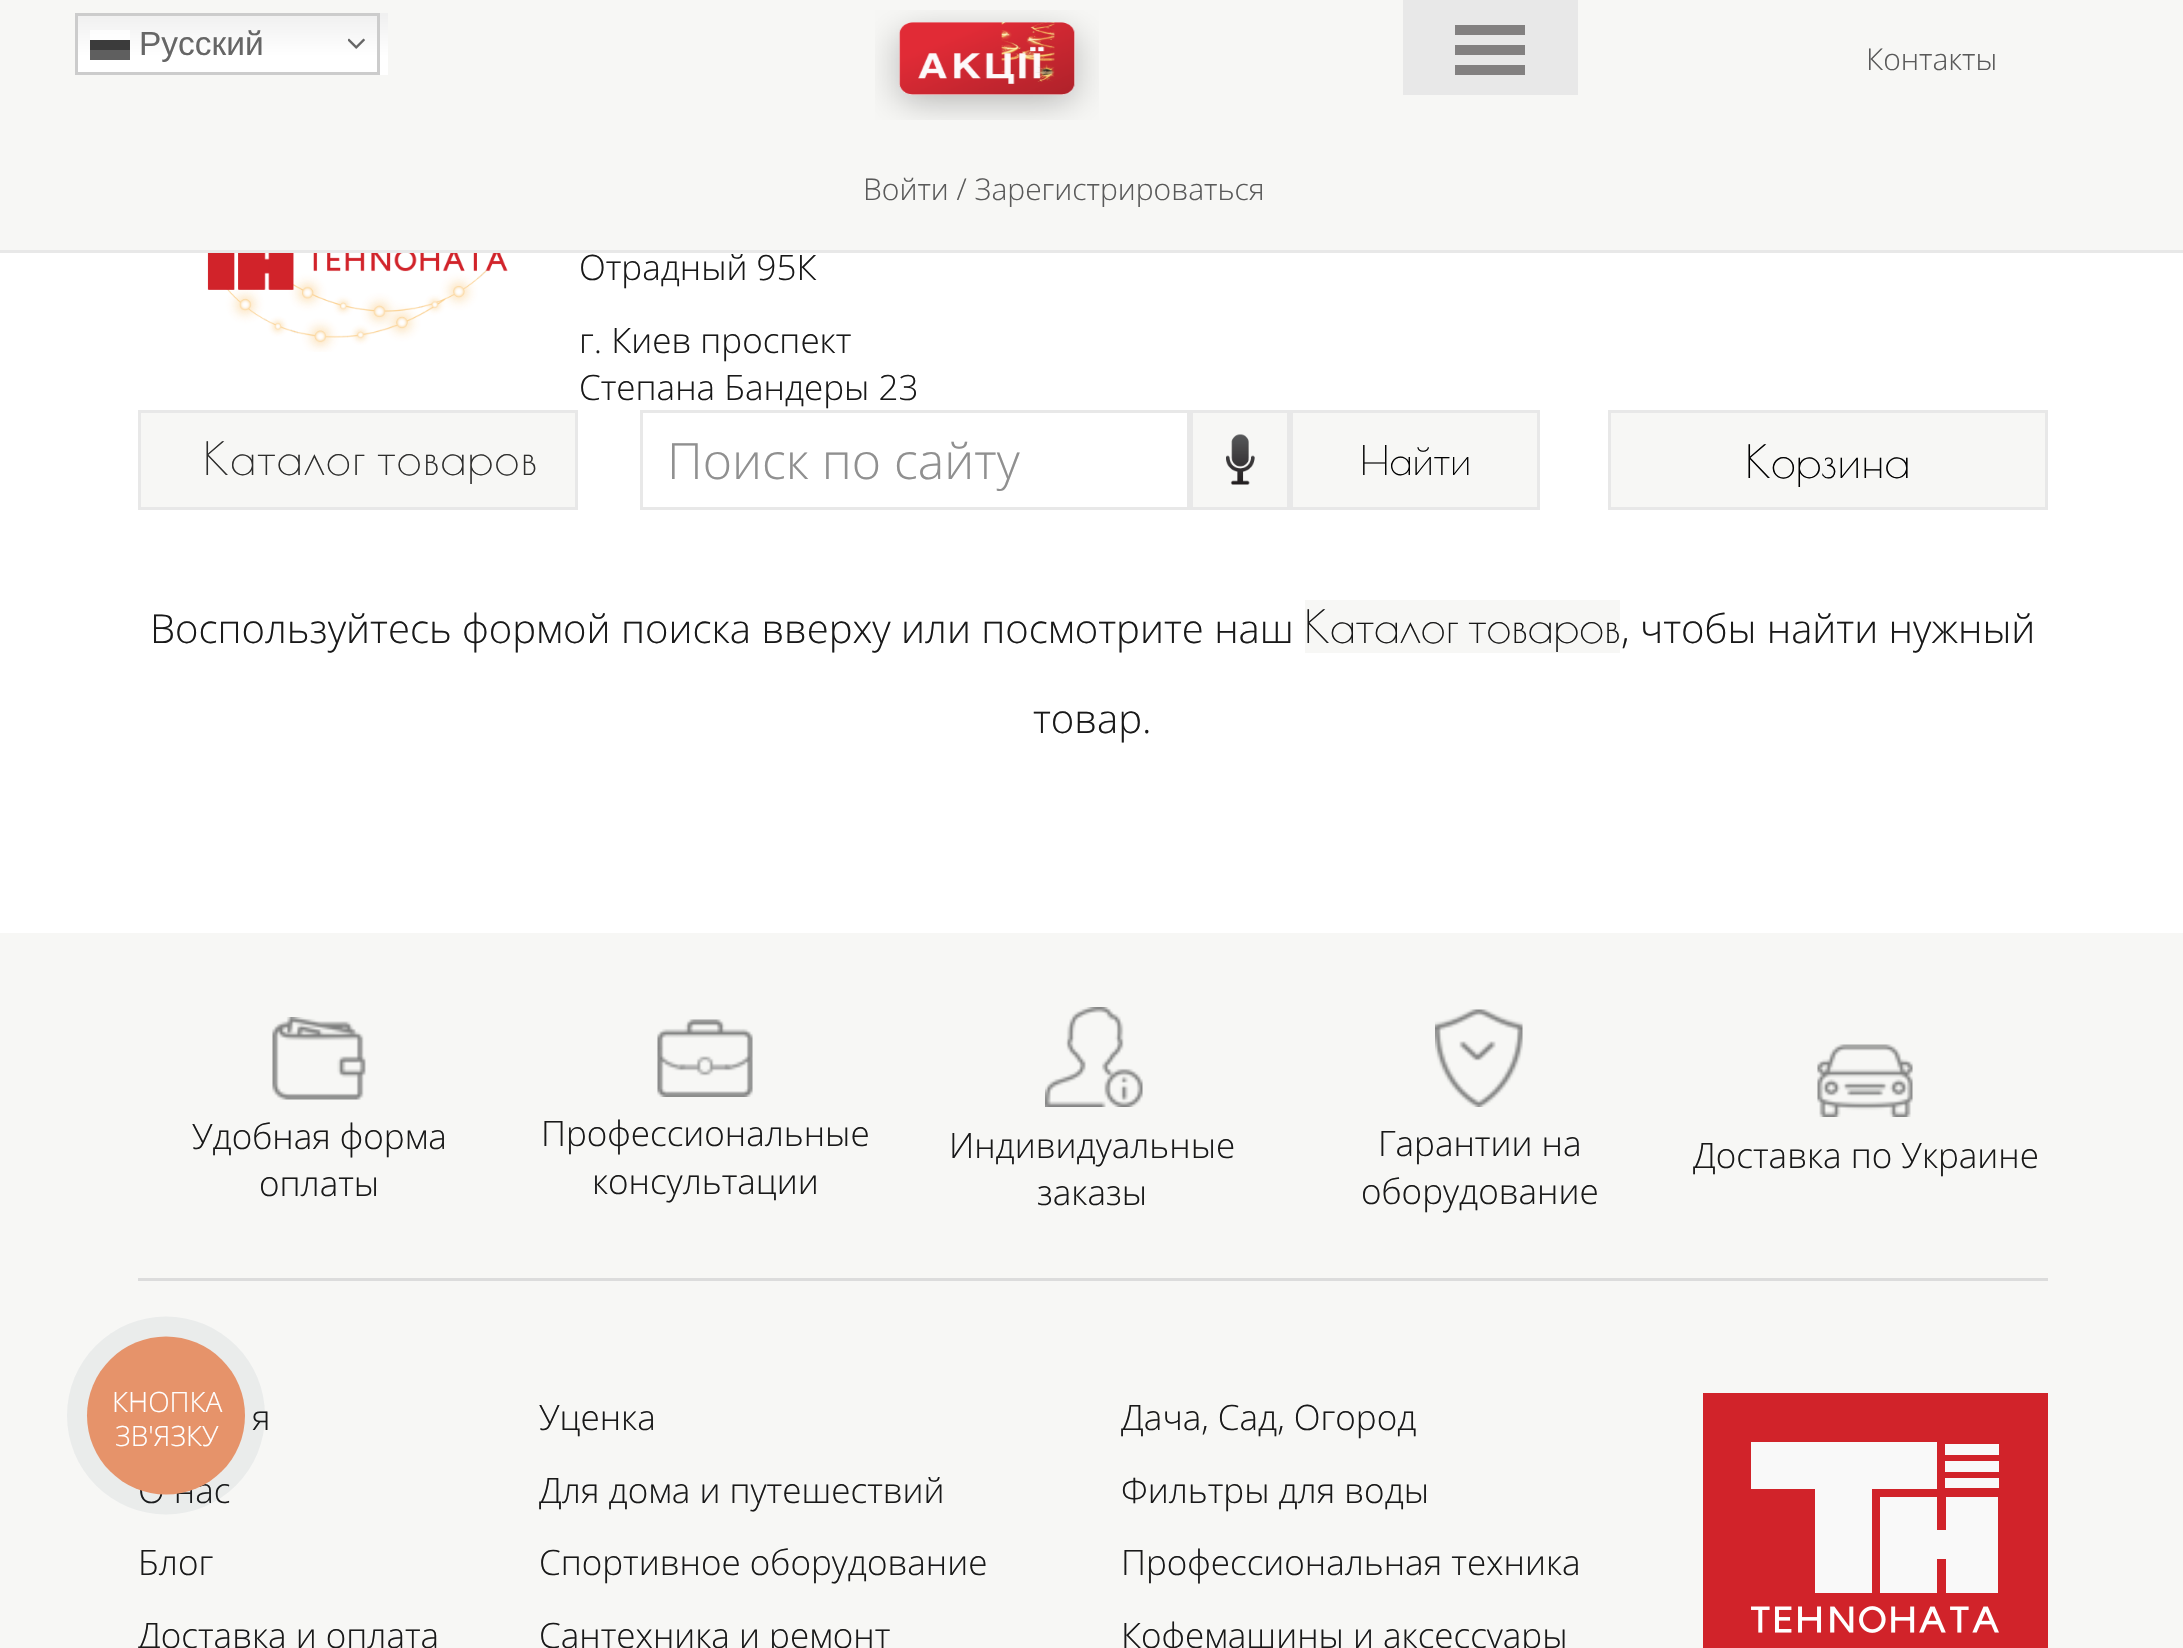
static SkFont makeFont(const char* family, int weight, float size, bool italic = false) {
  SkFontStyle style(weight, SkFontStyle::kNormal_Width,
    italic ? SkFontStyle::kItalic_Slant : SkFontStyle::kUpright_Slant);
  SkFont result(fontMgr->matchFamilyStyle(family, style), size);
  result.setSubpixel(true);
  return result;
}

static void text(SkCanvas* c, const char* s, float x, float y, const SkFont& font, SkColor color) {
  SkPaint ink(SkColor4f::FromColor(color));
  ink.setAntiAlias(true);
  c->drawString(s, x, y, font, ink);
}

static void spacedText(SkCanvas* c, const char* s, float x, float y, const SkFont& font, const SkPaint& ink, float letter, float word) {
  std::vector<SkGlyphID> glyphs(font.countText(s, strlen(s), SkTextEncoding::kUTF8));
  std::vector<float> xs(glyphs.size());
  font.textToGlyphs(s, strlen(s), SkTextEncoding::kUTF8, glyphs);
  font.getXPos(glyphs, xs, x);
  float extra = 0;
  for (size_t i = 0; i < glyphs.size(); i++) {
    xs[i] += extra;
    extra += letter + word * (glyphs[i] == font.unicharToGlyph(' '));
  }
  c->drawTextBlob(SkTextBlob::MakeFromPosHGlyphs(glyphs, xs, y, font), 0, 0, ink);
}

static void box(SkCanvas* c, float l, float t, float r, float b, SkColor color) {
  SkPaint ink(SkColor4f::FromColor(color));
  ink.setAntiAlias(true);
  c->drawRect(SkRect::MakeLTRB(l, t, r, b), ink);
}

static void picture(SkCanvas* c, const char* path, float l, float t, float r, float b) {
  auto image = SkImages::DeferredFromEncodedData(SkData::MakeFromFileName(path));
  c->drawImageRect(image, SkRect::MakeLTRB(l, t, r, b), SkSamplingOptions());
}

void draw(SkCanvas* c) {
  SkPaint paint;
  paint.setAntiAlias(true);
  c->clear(0xffffffff);
  box(c, 0, 0, 2183, 250, 0xfff7f7f5);
  {
    const SkColor colors[] = {0xffefefef, 0xffffffff};
    const float stops[] = {0, 0.7f};
    const SkPoint ends[] = {{231, 12}, {231, 75}};
    paint.setShader(SkGradientShader::MakeLinear(ends, colors, stops, 2, SkTileMode::kClamp));
    paint.setAlpha(255);
  }
  c->drawRect(SkRect::MakeLTRB(78, 13, 388, 75), paint);
  {
    const SkColor colors[] = {0xfffcfcfc, 0xffffffff};
    const float stops[] = {0, 0.7f};
    const SkPoint ends[] = {{231, 12}, {231, 75}};
    paint.setShader(SkGradientShader::MakeLinear(ends, colors, stops, 2, SkTileMode::kClamp));
    paint.setAlpha(255);
  }
  c->drawRect(SkRect::MakeLTRB(90, 30, 130, 40), paint);
  paint.setStyle(SkPaint::kStroke_Style);
  paint.setStrokeWidth(3);
  paint.setShader(nullptr);
  paint.setColor(0xffcccccc);
  c->drawRect(SkRect::MakeLTRB(76.5f, 14.5f, 378.5f, 73.5f), paint);
  box(c, 90, 40, 130, 50, 0xff3b3b3b);
  SkFont face1 = makeFont("Liberation Sans", 400, 33.5f);
  text(c, "Русский", 139, 55, face1, 0xff666666);
  picture(c, "img_01.png", 348, 38, 365, 49);
  box(c, 90, 50, 130, 60, 0xff5f5f5f);
  box(c, 0, 250, 2183, 253, 0xffe8e8e8);
  picture(c, "img_02.png", 875, 10, 1099, 120);
  box(c, 1403, 0, 1578, 95, 0xffe8e8e8);
  box(c, 1455, 25, 1525, 35, 0xff828080);
  box(c, 1455, 45, 1525, 55, 0xff828080);
  box(c, 1455, 65, 1525, 75, 0xff828080);
  SkFont face2 = makeFont("Open Sans", 300, 30);
  text(c, "Контакты", 1866, 70, face2, 0xff5a5a5a);
  text(c, "Войти / Зарегистрироваться", 863, 200, face2, 0xff5a5a5a);
  picture(c, "img_03.png", 207, 253, 508, 352);
  SkFont face3 = makeFont("Open Sans", 300, 35);
  text(c, "Отрадный 95К", 579, 280, face3, 0xff191919);
  text(c, "г. Киев проспект", 579, 353, face3, 0xff191919);
  text(c, "Степана Бандеры 23", 579, 400, face3, 0xff191919);
  paint.setStyle(SkPaint::kFill_Style);
  paint.setColor(0xfff7f7f5);
  c->drawRect(SkRect::MakeLTRB(139.5f, 411.5f, 576.5f, 508.5f), paint);
  paint.setStyle(SkPaint::kStroke_Style);
  paint.setColor(0xffe8e8e8);
  c->drawRect(SkRect::MakeLTRB(139.5f, 411.5f, 576.5f, 508.5f), paint);
  SkFont face4 = makeFont("Poiret One", 400, 45);
  paint.setStyle(SkPaint::kFill_Style);
  paint.setColor(0xff2e2e2d);
  spacedText(c, "Каталог товаров", 203, 475, face4, paint, 1.25f, 0);
  paint.setStyle(SkPaint::kStroke_Style);
  paint.setColor(0xffe8e8e8);
  c->drawRect(SkRect::MakeLTRB(641.5f, 411.5f, 1188.5f, 508.5f), paint);
  SkFont face5 = makeFont("Open Sans", 300, 50);
  text(c, "Поиск по сайту", 667, 479, face5, 0xff909090);
  paint.setStyle(SkPaint::kFill_Style);
  paint.setColor(0xfff7f7f5);
  c->drawRect(SkRect::MakeLTRB(1191.5f, 411.5f, 1288.5f, 508.5f), paint);
  paint.setStyle(SkPaint::kStroke_Style);
  paint.setColor(0xffe8e8e8);
  c->drawRect(SkRect::MakeLTRB(1191.5f, 411.5f, 1288.5f, 508.5f), paint);
  picture(c, "img_04.png", 1226, 434, 1255, 485);
  paint.setStyle(SkPaint::kFill_Style);
  paint.setColor(0xfff7f7f5);
  c->drawRect(SkRect::MakeLTRB(1291.5f, 411.5f, 1538.5f, 508.5f), paint);
  paint.setStyle(SkPaint::kStroke_Style);
  paint.setColor(0xffe8e8e8);
  c->drawRect(SkRect::MakeLTRB(1291.5f, 411.5f, 1538.5f, 508.5f), paint);
  SkFont face6 = makeFont("Poiret One", 400, 40);
  text(c, "Найти", 1360, 475, face6, 0xff000000);
  paint.setStyle(SkPaint::kFill_Style);
  paint.setColor(0xfff7f7f5);
  c->drawRect(SkRect::MakeLTRB(1609.5f, 411.5f, 2046.5f, 508.5f), paint);
  paint.setStyle(SkPaint::kStroke_Style);
  paint.setColor(0xffe8e8e8);
  c->drawRect(SkRect::MakeLTRB(1609.5f, 411.5f, 2046.5f, 508.5f), paint);
  text(c, "Корзина", 1745, 478, face4, 0xff000000);
  SkFont face7 = makeFont("Open Sans", 300, 40);
  text(c, "Воспользуйтесь формой поиска вверху или посмотрите наш", 150, 643, face7, 0xff191919);
  box(c, 1305, 600, 1620, 653, 0xfff7f7f5);
  text(c, "Каталог товаров", 1304, 643, face4, 0xff191919);
  text(c, ", чтобы найти нужный", 1621, 643, face7, 0xff191919);
  text(c, "товар.", 1033, 733, face7, 0xff191919);
  box(c, 0, 933, 2183, 1648, 0xfff7f7f5);
  picture(c, "img_05.png", 272, 1017, 366, 1100);
  text(c, "Удобная форма", 192, 1149, face3, 0xff191919);
  text(c, "оплаты", 259, 1196, face3, 0xff191919);
  picture(c, "img_06.png", 657, 1019, 753, 1097);
  text(c, "Профессиональные", 541, 1146, face3, 0xff191919);
  text(c, "консультации", 592, 1194, face3, 0xff191919);
  picture(c, "img_07.png", 1045, 1007, 1143, 1107);
  text(c, "Индивидуальные", 949, 1158, face3, 0xff191919);
  text(c, "заказы", 1037, 1205, face3, 0xff191919);
  picture(c, "img_08.png", 1435, 1009, 1523, 1107);
  text(c, "Гарантии на", 1378, 1156, face3, 0xff191919);
  text(c, "оборудование", 1361, 1204, face3, 0xff191919);
  picture(c, "img_09.png", 1817, 1044, 1913, 1117);
  text(c, "Доставка по Украине", 1693, 1168, face3, 0xff191919);
  box(c, 138, 1278, 2048, 1281, 0xffdcdcdc);
  text(c, "я", 252, 1430, face3, 0xff191919);
  text(c, "О нас", 138, 1503, face3, 0xff191919);
  text(c, "Блог", 138, 1575, face3, 0xff191919);
  text(c, "Доставка и оплата", 138, 1648, face3, 0xff191919);
  text(c, "Уценка", 539, 1430, face3, 0xff191919);
  text(c, "Дача, Сад, Огород", 1121, 1430, face3, 0xff191919);
  text(c, "Для дома и путешествий", 539, 1503, face3, 0xff191919);
  text(c, "Фильтры для воды", 1121, 1503, face3, 0xff191919);
  text(c, "Спортивное оборудование", 539, 1575, face3, 0xff191919);
  text(c, "Профессиональная техника", 1121, 1575, face3, 0xff191919);
  text(c, "Сантехника и ремонт", 539, 1648, face3, 0xff191919);
  text(c, "Кофемашины и аксессуары", 1121, 1648, face3, 0xff191919);
  picture(c, "img_10.png", 1703, 1393, 2048, 1648);
  paint.setStyle(SkPaint::kFill_Style);
  paint.setColor(0x0f2a405d);
  c->drawCircle(166, 1415.5f, 99, paint);
  paint.setColor(0xffe6936a);
  c->drawCircle(166, 1415.5f, 79, paint);
  SkFont face8 = makeFont("Open Sans", 300, 28);
  text(c, "КНОПКА", 112, 1412, face8, 0xffffffff);
  text(c, "ЗВ'ЯЗКУ", 115, 1446, face8, 0xffffffff);
}
